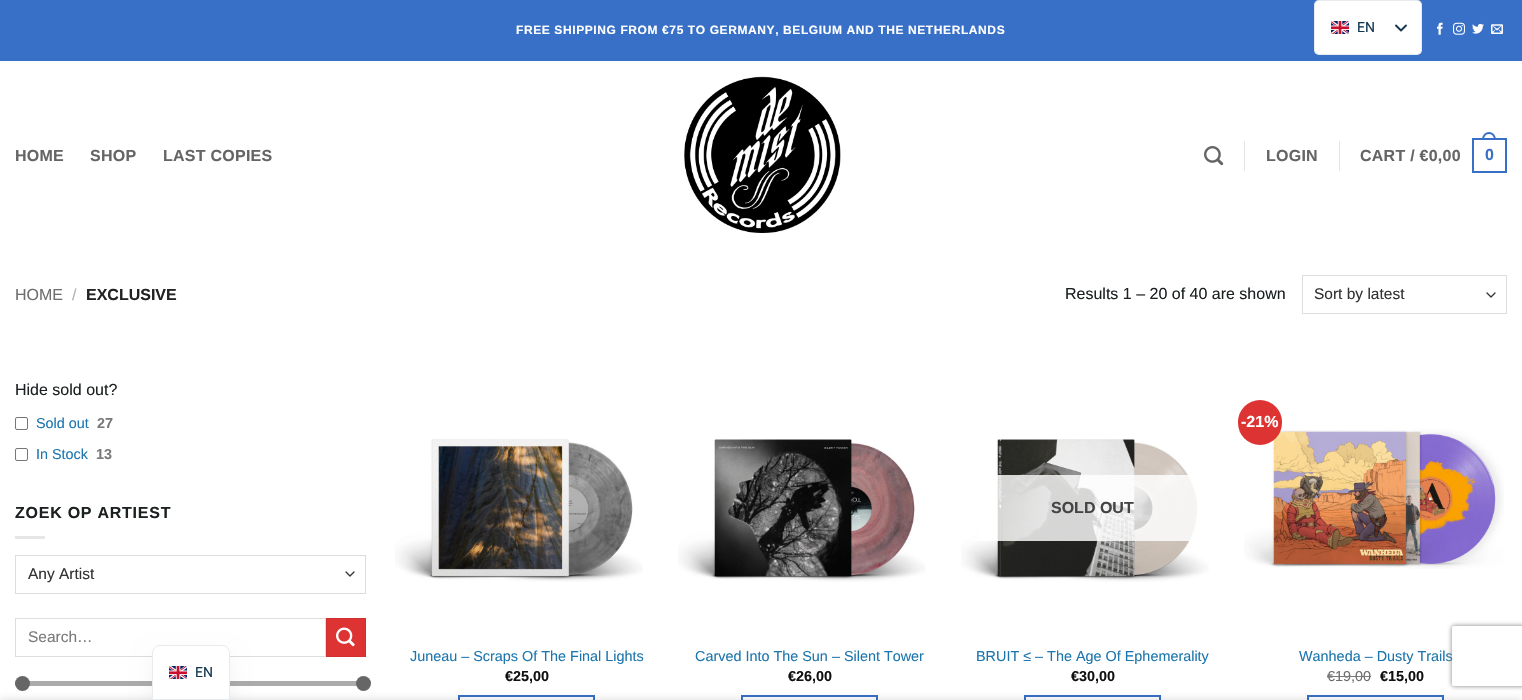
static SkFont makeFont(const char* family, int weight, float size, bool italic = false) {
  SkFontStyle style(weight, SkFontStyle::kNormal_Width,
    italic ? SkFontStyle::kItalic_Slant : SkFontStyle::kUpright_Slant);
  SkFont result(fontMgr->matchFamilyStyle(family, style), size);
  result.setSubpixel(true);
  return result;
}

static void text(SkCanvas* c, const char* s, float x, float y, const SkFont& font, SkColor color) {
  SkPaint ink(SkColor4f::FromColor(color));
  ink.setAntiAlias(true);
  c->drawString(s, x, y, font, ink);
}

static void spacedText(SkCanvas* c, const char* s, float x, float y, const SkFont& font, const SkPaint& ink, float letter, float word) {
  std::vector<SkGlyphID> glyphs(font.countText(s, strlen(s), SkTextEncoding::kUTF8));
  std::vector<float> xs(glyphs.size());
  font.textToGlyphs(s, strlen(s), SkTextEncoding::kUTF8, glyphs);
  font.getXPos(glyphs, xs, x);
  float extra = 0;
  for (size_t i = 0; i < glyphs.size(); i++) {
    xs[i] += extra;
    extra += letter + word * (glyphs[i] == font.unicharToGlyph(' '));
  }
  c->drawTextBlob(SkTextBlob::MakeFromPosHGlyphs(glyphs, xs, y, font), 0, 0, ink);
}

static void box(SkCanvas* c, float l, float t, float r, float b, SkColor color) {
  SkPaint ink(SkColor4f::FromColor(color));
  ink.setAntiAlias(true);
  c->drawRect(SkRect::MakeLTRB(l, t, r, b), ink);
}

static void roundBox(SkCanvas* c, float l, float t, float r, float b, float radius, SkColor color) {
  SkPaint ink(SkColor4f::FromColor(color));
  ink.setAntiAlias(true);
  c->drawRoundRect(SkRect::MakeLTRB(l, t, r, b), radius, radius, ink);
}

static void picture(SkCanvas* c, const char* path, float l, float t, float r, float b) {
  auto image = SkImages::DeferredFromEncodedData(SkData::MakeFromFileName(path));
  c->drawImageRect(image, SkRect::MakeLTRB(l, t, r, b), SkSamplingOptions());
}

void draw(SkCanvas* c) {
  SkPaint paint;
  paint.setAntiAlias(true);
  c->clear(0xffffffff);
  box(c, 0, 0, 1522, 61, 0xff3770c6);
  SkFont face1 = makeFont("Liberation Sans", 700, 12);
  paint.setColor(0xffffffff);
  spacedText(c, "FREE SHIPPING FROM €75 TO GERMANY, BELGIUM AND THE NETHERLANDS", 516, 34, face1, paint, 0.6f, 0);
  roundBox(c, 1314, 0, 1422, 55, 5, 0xffffffff);
  paint.setStyle(SkPaint::kStroke_Style);
  paint.setStrokeWidth(1);
  paint.setColor(0x1a143852);
  c->drawRoundRect(SkRect::MakeLTRB(1314.5f, 0.5f, 1421.5f, 54.5f), 4.5f, 4.5f, paint);
  picture(c, "img_01.png", 1331, 21, 1349, 34);
  SkFont face2 = makeFont("Roboto", 400, 14);
  text(c, "EN", 1357, 32, face2, 0xff143852);
  paint.setStrokeWidth(1.9f);
  paint.setStrokeCap(SkPaint::kRound_Cap);
  paint.setStrokeJoin(SkPaint::kRound_Join);
  paint.setColor(0xff143852);
  c->drawPath(SkPathBuilder().moveTo(1396, 25.5f).lineTo(1401, 30.5f).lineTo(1406, 25.5f).detach(), paint);
  picture(c, "img_02.png", 1437, 22, 1443, 35);
  picture(c, "img_03.png", 1453, 22, 1465, 35);
  picture(c, "img_04.png", 1472, 23, 1484, 34);
  picture(c, "img_05.png", 1491, 24, 1503, 34);
  SkFont face3 = makeFont("Liberation Sans", 700, 16);
  paint.setStyle(SkPaint::kFill_Style);
  paint.setColor(0xff656565);
  spacedText(c, "HOME", 15, 161, face3, paint, 0.25f, 0);
  spacedText(c, "SHOP", 90, 161, face3, paint, 0.25f, 0);
  spacedText(c, "LAST COPIES", 163, 161, face3, paint, 0.25f, 0);
  picture(c, "img_06.png", 684, 76, 841, 233);
  picture(c, "img_07.png", 1204, 146, 1224, 166);
  box(c, 1244, 141, 1245, 171, 0xffe6e6e6);
  spacedText(c, "LOGIN", 1266, 161, face3, paint, 0.25f, 0);
  box(c, 1339, 141, 1340, 171, 0xffe6e6e6);
  spacedText(c, "CART / €0,00", 1360, 161, face3, paint, 0.25f, 0);
  paint.setStyle(SkPaint::kStroke_Style);
  paint.setStrokeWidth(2);
  paint.setStrokeCap(SkPaint::kButt_Cap);
  paint.setStrokeJoin(SkPaint::kMiter_Join);
  paint.setColor(0xff3770c6);
  c->drawRect(SkRect::MakeLTRB(1473, 139, 1506, 172), paint);
  paint.setStyle(SkPaint::kFill_Style);
  c->drawPath(SkPathBuilder(SkPathFillType::kEvenOdd).moveTo(1489, 132).cubicTo(1493.5f, 132, 1496, 136, 1496, 140).lineTo(1482, 140).cubicTo(1482, 136, 1484.5f, 132, 1489, 132).close().moveTo(1489, 134).cubicTo(1492.5f, 134, 1494, 137, 1494, 140).lineTo(1484, 140).cubicTo(1484, 137, 1485.5f, 134, 1489, 134).close().detach(), paint);
  spacedText(c, "0", 1485, 160, face3, paint, 0.25f, 0);
  SkFont face4 = makeFont("Liberation Sans", 400, 16);
  text(c, "HOME", 15, 300, face4, 0xff6e6e6e);
  text(c, "/", 72, 300, face4, 0xffb2b2b2);
  text(c, "EXCLUSIVE", 86, 300, face3, 0xff222222);
  text(c, "Results 1 – 20 of 40 are shown", 1065, 299, face4, 0xff1b2021);
  paint.setStyle(SkPaint::kStroke_Style);
  paint.setStrokeWidth(1.3f);
  paint.setStrokeCap(SkPaint::kRound_Cap);
  paint.setStrokeJoin(SkPaint::kRound_Join);
  paint.setColor(0xff333333);
  c->drawPath(SkPathBuilder().moveTo(1487, 293).lineTo(1491, 297).lineTo(1495, 293).detach(), paint);
  paint.setStrokeWidth(1);
  paint.setStrokeCap(SkPaint::kButt_Cap);
  paint.setStrokeJoin(SkPaint::kMiter_Join);
  paint.setColor(0xffdddddd);
  c->drawRect(SkRect::MakeLTRB(1302.5f, 275.5f, 1506.5f, 313.5f), paint);
  SkFont face5 = makeFont("Liberation Sans", 400, 15.5f);
  text(c, "Sort by latest", 1314, 299, face5, 0xff333333);
  text(c, "Hide sold out?", 15, 395, face4, 0xff1b2021);
  paint.setColor(0xff767676);
  c->drawRoundRect(SkRect::MakeLTRB(15.5f, 417.5f, 27.5f, 429.5f), 1.5f, 1.5f, paint);
  SkFont face6 = makeFont("Liberation Sans", 400, 14.4f);
  text(c, "Sold out", 36, 428, face6, 0xff1d76ae);
  SkFont face7 = makeFont("Liberation Sans", 700, 14.4f);
  text(c, "27", 97, 428, face7, 0xff7a7a7a);
  c->drawRoundRect(SkRect::MakeLTRB(15.5f, 448.5f, 27.5f, 460.5f), 1.5f, 1.5f, paint);
  text(c, "In Stock", 36, 459, face6, 0xff1d76ae);
  text(c, "13", 96, 459, face7, 0xff7a7a7a);
  paint.setStyle(SkPaint::kFill_Style);
  paint.setColor(0xff1b2021);
  spacedText(c, "ZOEK OP ARTIEST", 15, 518, face3, paint, 0.75f, 0);
  box(c, 15, 536, 45, 539, 0xffe6e6e6);
  paint.setStyle(SkPaint::kStroke_Style);
  paint.setStrokeWidth(1.3f);
  paint.setStrokeCap(SkPaint::kRound_Cap);
  paint.setStrokeJoin(SkPaint::kRound_Join);
  paint.setColor(0xff333333);
  c->drawPath(SkPathBuilder().moveTo(346, 572).lineTo(350, 576).lineTo(354, 572).detach(), paint);
  paint.setStrokeWidth(1);
  paint.setStrokeCap(SkPaint::kButt_Cap);
  paint.setStrokeJoin(SkPaint::kMiter_Join);
  paint.setColor(0xffdddddd);
  c->drawRect(SkRect::MakeLTRB(15.5f, 555.5f, 365.5f, 593.5f), paint);
  text(c, "Any Artist", 28, 579, face5, 0xff333333);
  c->drawRect(SkRect::MakeLTRB(15.5f, 618.5f, 325.5f, 656.5f), paint);
  text(c, "Search…", 28, 642, face5, 0xff7a7a7a);
  paint.setStyle(SkPaint::kFill_Style);
  paint.setColor(0xffdd3333);
  c->drawRect(SkRect::MakeLTRB(326.5f, 618.5f, 365.5f, 656.5f), paint);
  paint.setStyle(SkPaint::kStroke_Style);
  paint.setColor(0xffd23030);
  c->drawRect(SkRect::MakeLTRB(326.5f, 618.5f, 365.5f, 656.5f), paint);
  picture(c, "img_08.png", 336, 627, 355, 647);
  roundBox(c, 15, 681, 366, 686, 2.5f, 0xfff1f1f1);
  roundBox(c, 15, 681, 366, 686, 2.5f, 0x80666666);
  paint.setStyle(SkPaint::kFill_Style);
  paint.setColor(0xff666666);
  c->drawCircle(22.5f, 683.5f, 7.5f, paint);
  c->drawCircle(363.5f, 683.5f, 7.5f, paint);
  picture(c, "img_09.png", 395, 439, 643, 582);
  text(c, "Juneau – Scraps Of The Final Lights", 410, 661, face6, 0xff1d76ae);
  text(c, "€25,00", 505, 681, face7, 0xff111111);
  paint.setStyle(SkPaint::kStroke_Style);
  paint.setStrokeWidth(2);
  paint.setColor(0xff3770c6);
  c->drawRect(SkRect::MakeLTRB(459, 696, 594, 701), paint);
  picture(c, "img_10.png", 678, 439, 926, 582);
  text(c, "Carved Into The Sun – Silent Tower", 695, 661, face6, 0xff1d76ae);
  text(c, "€26,00", 788, 681, face7, 0xff111111);
  c->drawRect(SkRect::MakeLTRB(742, 696, 877, 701), paint);
  picture(c, "img_11.png", 961, 439, 1209, 582);
  box(c, 979, 475, 1198, 541, 0xcfffffff);
  text(c, "SOLD OUT", 1051, 513, face3, 0xff444444);
  text(c, "BRUIT ≤ – The Age Of Ephemerality", 976, 661, face6, 0xff1d76ae);
  text(c, "€30,00", 1071, 681, face7, 0xff111111);
  c->drawRect(SkRect::MakeLTRB(1025, 696, 1160, 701), paint);
  picture(c, "img_12.png", 1244, 428, 1504, 569);
  roundBox(c, 1238, 400, 1282, 445, 22, 0xffdd3333);
  text(c, "-21%", 1241, 427, face3, 0xffffffff);
  text(c, "Wanheda – Dusty Trails", 1299, 661, face6, 0xff1d76ae);
  text(c, "€19,00", 1327, 681, face6, 0xff6e6e6e);
  box(c, 1327, 676, 1371, 677, 0xff76797a);
  text(c, "€15,00", 1380, 681, face7, 0xff111111);
  c->drawRect(SkRect::MakeLTRB(1308, 696, 1443, 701), paint);
  paint.setStyle(SkPaint::kFill_Style);
  paint.setColor(0x0d000000);
  paint.setMaskFilter(SkMaskFilter::MakeBlur(kNormal_SkBlurStyle, 10));
  c->drawRoundRect(SkRect::MakeLTRB(152, 655, 230, 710), 8, 8, paint);
  paint.setMaskFilter(nullptr);
  paint.setColor(0x24000000);
  paint.setMaskFilter(SkMaskFilter::MakeBlur(kNormal_SkBlurStyle, 4.5f));
  c->drawRect(SkRect::MakeLTRB(0, 700, 1522, 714), paint);
  paint.setMaskFilter(nullptr);
  paint.setColor(0xffffffff);
  c->drawPath(SkPathBuilder().moveTo(160, 645.5f).lineTo(222, 645.5f).cubicTo(226, 645.5f, 229.5f, 649, 229.5f, 653).lineTo(229.5f, 699.5f).lineTo(152.5f, 699.5f).lineTo(152.5f, 653).cubicTo(152.5f, 649, 156, 645.5f, 160, 645.5f).close().detach(), paint);
  paint.setStyle(SkPaint::kStroke_Style);
  paint.setStrokeWidth(1);
  paint.setColor(0xffe7ebee);
  c->drawPath(SkPathBuilder().moveTo(160, 645.5f).lineTo(222, 645.5f).cubicTo(226, 645.5f, 229.5f, 649, 229.5f, 653).lineTo(229.5f, 699.5f).lineTo(152.5f, 699.5f).lineTo(152.5f, 653).cubicTo(152.5f, 649, 156, 645.5f, 160, 645.5f).close().detach(), paint);
  picture(c, "img_01.png", 169, 666, 187, 679);
  text(c, "EN", 195, 677, face2, 0xff143852);
  c->save();
  c->clipPath(SkPathBuilder(SkPathFillType::kEvenOdd).moveTo(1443, 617).lineTo(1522, 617).lineTo(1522, 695).lineTo(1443, 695).close().moveTo(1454, 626).lineTo(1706, 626).cubicTo(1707, 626, 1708, 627, 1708, 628).lineTo(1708, 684).cubicTo(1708, 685, 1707, 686, 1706, 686).lineTo(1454, 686).cubicTo(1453, 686, 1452, 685, 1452, 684).lineTo(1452, 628).cubicTo(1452, 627, 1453, 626, 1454, 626).close().detach(), true);
  paint.setStyle(SkPaint::kFill_Style);
  paint.setColor(0xff808080);
  paint.setMaskFilter(SkMaskFilter::MakeBlur(kNormal_SkBlurStyle, 2.5f));
  c->drawRoundRect(SkRect::MakeLTRB(1452, 626, 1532, 686), 2, 2, paint);
  paint.setMaskFilter(nullptr);
  c->restore();
}
